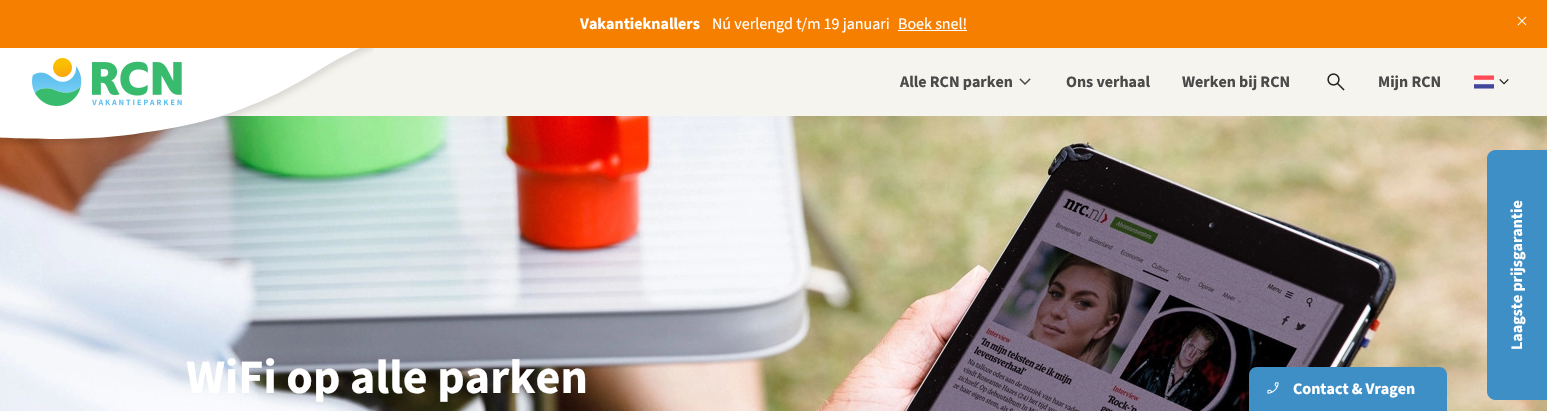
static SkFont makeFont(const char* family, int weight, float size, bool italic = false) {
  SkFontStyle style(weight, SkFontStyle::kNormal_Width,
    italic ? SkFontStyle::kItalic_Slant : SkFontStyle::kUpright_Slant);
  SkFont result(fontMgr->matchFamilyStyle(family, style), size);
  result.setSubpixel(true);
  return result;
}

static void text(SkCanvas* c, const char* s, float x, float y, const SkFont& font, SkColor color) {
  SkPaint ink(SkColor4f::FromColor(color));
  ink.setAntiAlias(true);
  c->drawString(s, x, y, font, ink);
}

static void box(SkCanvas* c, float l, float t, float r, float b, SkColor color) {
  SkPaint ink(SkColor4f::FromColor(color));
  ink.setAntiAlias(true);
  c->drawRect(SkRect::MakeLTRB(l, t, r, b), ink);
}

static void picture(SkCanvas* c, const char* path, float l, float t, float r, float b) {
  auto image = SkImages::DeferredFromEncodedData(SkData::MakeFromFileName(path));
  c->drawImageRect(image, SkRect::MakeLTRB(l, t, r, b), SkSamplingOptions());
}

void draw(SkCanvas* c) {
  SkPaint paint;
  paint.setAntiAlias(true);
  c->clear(0xfff67f00);
  SkFont face1 = makeFont("Source Sans 3", 700, 16);
  text(c, "Vakantieknallers", 580, 29, face1, 0xffffffff);
  SkFont face2 = makeFont("Source Sans 3", 400, 16);
  text(c, "Nú verlengd t/m 19 januari", 712, 29, face2, 0xffffffff);
  text(c, "Boek snel!", 898, 29, face2, 0xffffffff);
  box(c, 898, 30, 967, 31, 0xffffffff);
  picture(c, "img_01.png", 1517, 16, 1527, 26);
  box(c, 221, 48, 1547, 116, 0xfff6f4ee);
  picture(c, "img_08.png", 0, 116, 1547, 411);
  picture(c, "img_02.png", 0, 48, 374, 146);
  picture(c, "img_03.png", 32, 58, 182, 106);
  text(c, "Alle RCN parken", 900, 87, face1, 0xff4a4a4a);
  picture(c, "img_04.png", 1019, 78, 1031, 85);
  text(c, "Ons verhaal", 1066, 87, face1, 0xff4a4a4a);
  text(c, "Werken bij RCN", 1182, 87, face1, 0xff4a4a4a);
  picture(c, "img_05.png", 1327, 73, 1345, 91);
  text(c, "Mijn RCN", 1378, 87, face1, 0xff4a4a4a);
  picture(c, "img_06.png", 1474, 75, 1494, 89);
  picture(c, "img_07.png", 1499, 79, 1509, 85);
  paint.setColor(0xff3f8fc7);
  c->drawPath(SkPathBuilder().moveTo(1487, 392).lineTo(1487, 158).cubicTo(1487, 154, 1491, 150, 1495, 150).lineTo(1547, 150).lineTo(1547, 400).lineTo(1495, 400).cubicTo(1491, 400, 1487, 396, 1487, 392).close().detach(), paint);
  c->save();
  c->rotate(-90, 1522, 350);
  text(c, "Laagste prijsgarantie", 1522, 350, face1, 0xffffffff);
  c->restore();
  SkFont face3 = makeFont("Source Sans 3", 700, 48);
  text(c, "WiFi op alle parken", 186, 393, face3, 0xffffffff);
  c->drawPath(SkPathBuilder().moveTo(1257, 367).lineTo(1439, 367).cubicTo(1443.5f, 367, 1447, 370.5f, 1447, 375).lineTo(1447, 411).lineTo(1249, 411).lineTo(1249, 375).cubicTo(1249, 370.5f, 1252.5f, 367, 1257, 367).close().detach(), paint);
  picture(c, "img_09.png", 1267, 382, 1279, 394);
  text(c, "Contact & Vragen", 1293, 394, face1, 0xffffffff);
}
